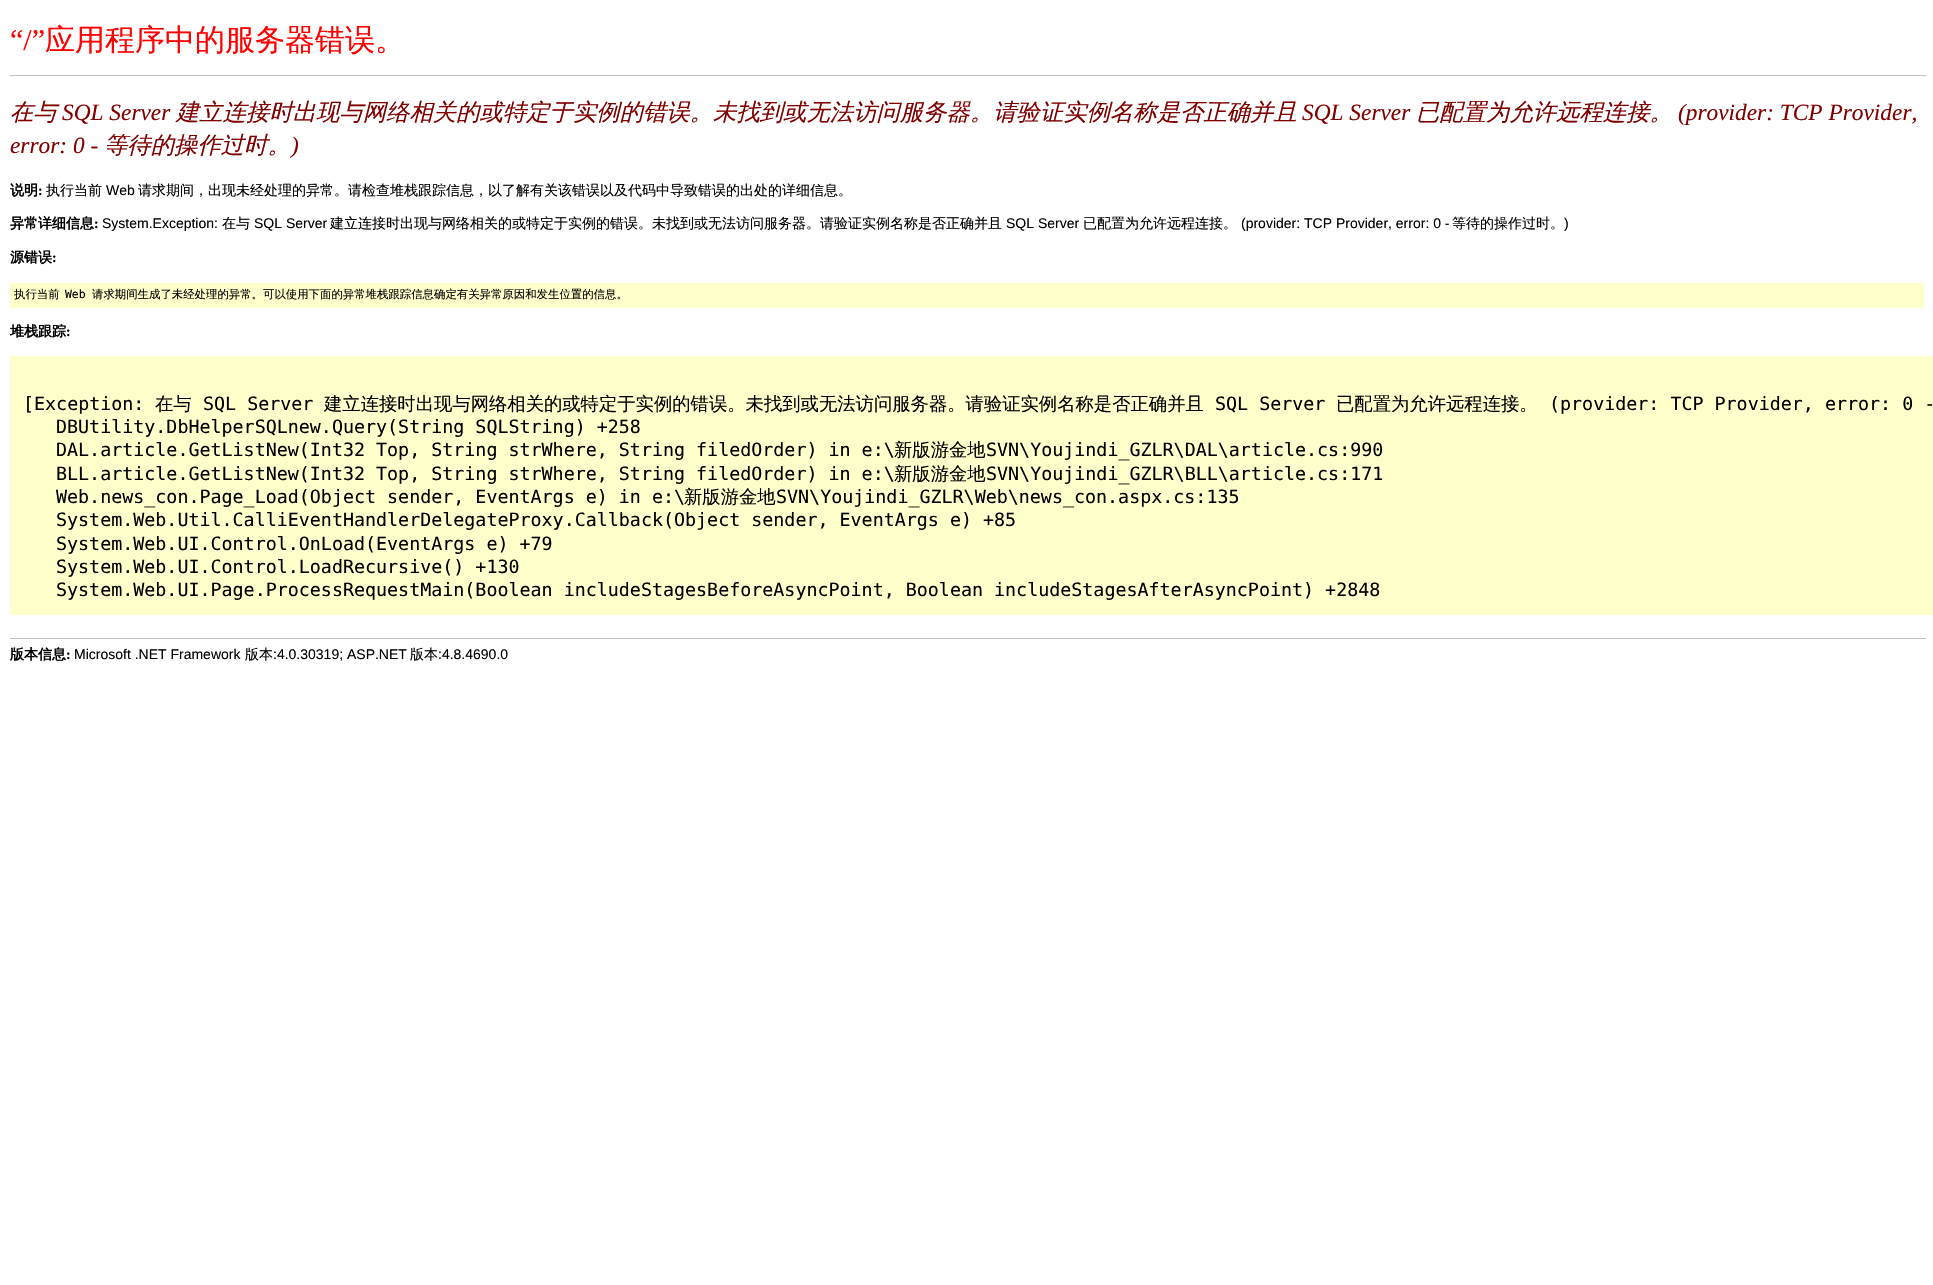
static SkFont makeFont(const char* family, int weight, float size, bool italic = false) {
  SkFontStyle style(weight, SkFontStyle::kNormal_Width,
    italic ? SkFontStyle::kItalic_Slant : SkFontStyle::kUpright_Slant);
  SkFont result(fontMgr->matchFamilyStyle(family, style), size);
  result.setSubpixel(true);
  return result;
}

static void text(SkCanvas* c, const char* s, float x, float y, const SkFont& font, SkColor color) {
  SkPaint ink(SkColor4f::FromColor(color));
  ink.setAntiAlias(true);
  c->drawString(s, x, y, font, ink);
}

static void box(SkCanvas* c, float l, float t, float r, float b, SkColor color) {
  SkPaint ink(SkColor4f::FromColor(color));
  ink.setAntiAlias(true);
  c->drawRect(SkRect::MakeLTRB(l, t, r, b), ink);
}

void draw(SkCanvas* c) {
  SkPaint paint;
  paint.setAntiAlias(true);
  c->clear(0xffffffff);
  SkFont face1 = makeFont("Liberation Serif", 400, 30);
  text(c, "“/”", 10, 50, face1, 0xffff0000);
  SkFont face2 = makeFont("WenQuanYi Zen Hei", 500, 30);
  text(c, "应用程序中的服务器错误。", 45, 50, face2, 0xffff0000);
  box(c, 10, 75, 1926, 76, 0xffc0c0c0);
  SkFont face3 = makeFont("WenQuanYi Zen Hei", 500, 23.35f, true);
  text(c, "在与", 10, 120, face3, 0xff800000);
  SkFont face4 = makeFont("Liberation Serif", 400, 23.35f, true);
  text(c, "SQL Server", 62, 120, face4, 0xff800000);
  text(c, "建立连接时出现与网络相关的或特定于实例的错误。未找到或无法访问服务器。请验证实例名称是否正确并且", 176, 120, face3, 0xff800000);
  text(c, "SQL Server", 1302, 120, face4, 0xff800000);
  text(c, "已配置为允许远程连接。", 1416, 120, face3, 0xff800000);
  text(c, "(provider: TCP Provider,", 1678, 120, face4, 0xff800000);
  text(c, "error: 0 -", 10, 153, face4, 0xff800000);
  text(c, "等待的操作过时。", 104, 153, face3, 0xff800000);
  text(c, ")", 291, 153, face4, 0xff800000);
  SkFont face5 = makeFont("WenQuanYi Zen Hei", 700, 14);
  text(c, "说明", 10, 195, face5, 0xff000000);
  SkFont face6 = makeFont("Liberation Serif", 700, 14);
  text(c, ":", 38, 195, face6, 0xff000000);
  SkFont face7 = makeFont("WenQuanYi Zen Hei", 500, 14);
  text(c, "执行当前", 46, 195, face7, 0xff000000);
  SkFont face8 = makeFont("Liberation Sans", 400, 14);
  text(c, "Web", 106, 195, face8, 0xff000000);
  text(c, "请求期间，出现未经处理的异常。请检查堆栈跟踪信息，以了解有关该错误以及代码中导致错误的出处的详细信息。", 138, 195, face7, 0xff000000);
  text(c, "异常详细信息", 10, 228, face5, 0xff000000);
  text(c, ":", 94, 228, face6, 0xff000000);
  text(c, "System.Exception:", 102, 228, face8, 0xff000000);
  text(c, "在与", 222, 228, face7, 0xff000000);
  text(c, "SQL Server", 254, 228, face8, 0xff000000);
  text(c, "建立连接时出现与网络相关的或特定于实例的错误。未找到或无法访问服务器。请验证实例名称是否正确并且", 330, 228, face7, 0xff000000);
  text(c, "SQL Server", 1006, 228, face8, 0xff000000);
  text(c, "已配置为允许远程连接。", 1083, 228, face7, 0xff000000);
  text(c, "(provider: TCP Provider, error: 0 -", 1241, 228, face8, 0xff000000);
  text(c, "等待的操作过时。", 1452, 228, face7, 0xff000000);
  text(c, ")", 1564, 228, face8, 0xff000000);
  text(c, "源错误", 10, 262, face5, 0xff000000);
  text(c, ":", 52, 262, face6, 0xff000000);
  box(c, 10, 283, 1924, 308, 0xffffffcc);
  SkFont face9 = makeFont("WenQuanYi Zen Hei", 500, 11.4f);
  text(c, "执行当前", 14, 298, face9, 0xff000000);
  SkFont face10 = makeFont("DejaVu Sans Mono", 400, 11.4f);
  text(c, "Web", 65, 298, face10, 0xff000000);
  text(c, "请求期间生成了未经处理的异常。可以使用下面的异常堆栈跟踪信息确定有关异常原因和发生位置的信息。", 92, 298, face9, 0xff000000);
  text(c, "堆栈跟踪", 10, 336, face5, 0xff000000);
  text(c, ":", 66, 336, face6, 0xff000000);
  box(c, 10, 356, 1933, 615, 0xffffffcc);
  SkFont face11 = makeFont("DejaVu Sans Mono", 400, 18.33f);
  text(c, "[Exception:", 23, 410, face11, 0xff000000);
  SkFont face12 = makeFont("WenQuanYi Zen Hei", 500, 18.33f);
  text(c, "在与", 155, 410, face12, 0xff000000);
  text(c, "SQL Server", 203, 410, face11, 0xff000000);
  text(c, "建立连接时出现与网络相关的或特定于实例的错误。未找到或无法访问服务器。请验证实例名称是否正确并且", 324, 410, face12, 0xff000000);
  text(c, "SQL Server", 1215, 410, face11, 0xff000000);
  text(c, "已配置为允许远程连接。", 1336, 410, face12, 0xff000000);
  text(c, "(provider: TCP Provider, error: 0 -", 1549, 410, face11, 0xff000000);
  text(c, "DBUtility.DbHelperSQLnew.Query(String SQLString) +258", 56, 433, face11, 0xff000000);
  text(c, "DAL.article.GetListNew(Int32 Top, String strWhere, String filedOrder) in e:\\", 56, 456, face11, 0xff000000);
  text(c, "新版游金地", 894, 456, face12, 0xff000000);
  text(c, "SVN\\Youjindi_GZLR\\DAL\\article.cs:990", 986, 456, face11, 0xff000000);
  text(c, "BLL.article.GetListNew(Int32 Top, String strWhere, String filedOrder) in e:\\", 56, 480, face11, 0xff000000);
  text(c, "新版游金地", 894, 480, face12, 0xff000000);
  text(c, "SVN\\Youjindi_GZLR\\BLL\\article.cs:171", 986, 480, face11, 0xff000000);
  text(c, "Web.news_con.Page_Load(Object sender, EventArgs e) in e:\\", 56, 503, face11, 0xff000000);
  text(c, "新版游金地", 684, 503, face12, 0xff000000);
  text(c, "SVN\\Youjindi_GZLR\\Web\\news_con.aspx.cs:135", 776, 503, face11, 0xff000000);
  text(c, "System.Web.Util.CalliEventHandlerDelegateProxy.Callback(Object sender, EventArgs e) +85", 56, 526, face11, 0xff000000);
  text(c, "System.Web.UI.Control.OnLoad(EventArgs e) +79", 56, 550, face11, 0xff000000);
  text(c, "System.Web.UI.Control.LoadRecursive() +130", 56, 573, face11, 0xff000000);
  text(c, "System.Web.UI.Page.ProcessRequestMain(Boolean includeStagesBeforeAsyncPoint, Boolean includeStagesAfterAsyncPoint) +2848", 56, 596, face11, 0xff000000);
  box(c, 10, 638, 1926, 639, 0xffc0c0c0);
  text(c, "版本信息", 10, 659, face5, 0xff000000);
  text(c, ":", 66, 659, face6, 0xff000000);
  text(c, "Microsoft .NET Framework", 74, 659, face8, 0xff000000);
  text(c, "版本", 245, 659, face7, 0xff000000);
  text(c, ":4.0.30319; ASP.NET", 273, 659, face8, 0xff000000);
  text(c, "版本", 410, 659, face7, 0xff000000);
  text(c, ":4.8.4690.0", 438, 659, face8, 0xff000000);
}
